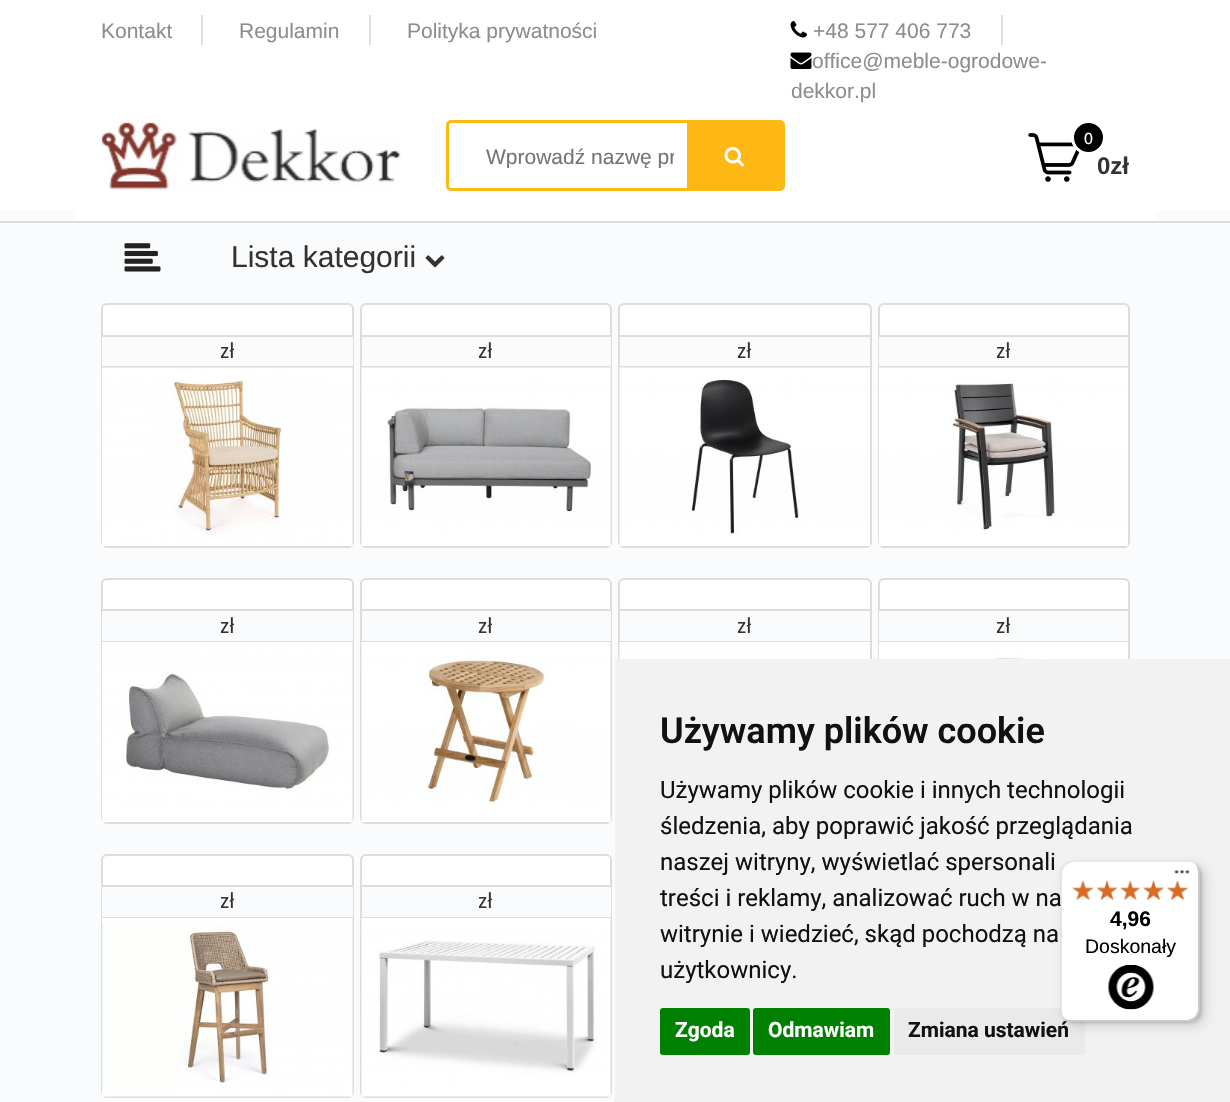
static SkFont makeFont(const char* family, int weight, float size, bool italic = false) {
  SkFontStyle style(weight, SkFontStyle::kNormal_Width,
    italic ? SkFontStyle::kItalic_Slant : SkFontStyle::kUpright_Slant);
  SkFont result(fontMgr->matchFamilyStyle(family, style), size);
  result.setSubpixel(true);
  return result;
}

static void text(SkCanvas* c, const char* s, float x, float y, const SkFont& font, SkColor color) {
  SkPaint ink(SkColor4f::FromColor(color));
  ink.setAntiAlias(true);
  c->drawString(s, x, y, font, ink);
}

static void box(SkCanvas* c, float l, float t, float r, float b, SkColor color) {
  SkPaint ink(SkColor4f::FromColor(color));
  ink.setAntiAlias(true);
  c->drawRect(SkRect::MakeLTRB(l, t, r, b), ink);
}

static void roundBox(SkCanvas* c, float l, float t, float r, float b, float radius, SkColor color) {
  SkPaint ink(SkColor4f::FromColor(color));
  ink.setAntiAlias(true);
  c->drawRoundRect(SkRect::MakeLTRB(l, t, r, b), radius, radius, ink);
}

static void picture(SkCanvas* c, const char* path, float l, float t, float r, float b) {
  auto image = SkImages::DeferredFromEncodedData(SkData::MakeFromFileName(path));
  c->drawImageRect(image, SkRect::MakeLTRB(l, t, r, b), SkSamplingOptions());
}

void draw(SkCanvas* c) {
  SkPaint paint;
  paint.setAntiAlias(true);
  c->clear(0xfff9fbfc);
  box(c, 0, 0, 1230, 210, 0xffffffff);
  box(c, 201, 15, 203, 45, 0xffdedede);
  SkFont face1 = makeFont("Liberation Sans", 400, 21);
  text(c, "Kontakt", 101, 38, face1, 0xff8d8d8d);
  box(c, 369, 15, 371, 45, 0xffdedede);
  text(c, "Regulamin", 239, 38, face1, 0xff8d8d8d);
  text(c, "Polityka prywatności", 407, 38, face1, 0xff8d8d8d);
  box(c, 1001, 15, 1003, 45, 0xffdedede);
  picture(c, "img_01.png", 790, 21, 807, 38);
  text(c, "+48 577 406 773", 813, 38, face1, 0xff8d8d8d);
  picture(c, "img_02.png", 790, 52, 812, 69);
  text(c, "office@meble-ogrodowe-", 812, 68, face1, 0xff8d8d8d);
  text(c, "dekkor.pl", 791, 98, face1, 0xff8d8d8d);
  box(c, 75, 210, 1155, 221, 0xffffffff);
  picture(c, "img_03.png", 101, 120, 401, 190);
  paint.setStyle(SkPaint::kStroke_Style);
  paint.setStrokeWidth(3);
  paint.setColor(0xfffdb813);
  c->drawRoundRect(SkRect::MakeLTRB(447.5f, 121.5f, 783.5f, 189.5f), 3.5f, 3.5f, paint);
  c->save();
  c->clipRect(SkRect::MakeLTRB(486, 144, 674, 168));
  text(c, "Wprowadź nazwę pr", 486, 164, face1, 0xff757575);
  c->restore();
  box(c, 687, 123, 782, 188, 0xfffdb813);
  picture(c, "img_04.png", 724, 147, 744, 167);
  picture(c, "img_05.png", 1028, 133, 1080, 182);
  paint.setStyle(SkPaint::kFill_Style);
  paint.setColor(0xff000000);
  c->drawCircle(1088.5f, 137.5f, 16, paint);
  paint.setStyle(SkPaint::kStroke_Style);
  paint.setColor(0xffffffff);
  c->drawCircle(1088.5f, 137.5f, 16, paint);
  SkFont face2 = makeFont("Liberation Sans", 400, 16);
  text(c, "0", 1084, 144, face2, 0xffffffff);
  SkFont face3 = makeFont("Liberation Sans", 700, 24);
  text(c, "0zł", 1097, 174, face3, 0xff333333);
  box(c, 0, 221, 1230, 223, 0xffdddddd);
  picture(c, "img_06.png", 124, 243, 161, 272);
  SkFont face4 = makeFont("Liberation Sans", 400, 30);
  text(c, "Lista kategorii", 231, 267, face4, 0xff333333);
  picture(c, "img_07.png", 425, 255, 445, 268);
  paint.setStyle(SkPaint::kFill_Style);
  c->drawRoundRect(SkRect::MakeLTRB(102, 304, 353, 547), 5, 5, paint);
  paint.setStyle(SkPaint::kStroke_Style);
  paint.setStrokeWidth(2);
  paint.setColor(0xffdddddd);
  c->drawRoundRect(SkRect::MakeLTRB(102, 304, 353, 547), 5, 5, paint);
  box(c, 102, 337, 353, 366, 0xfff9fbfc);
  box(c, 102, 335, 353, 337, 0xffdddddd);
  box(c, 102, 366, 353, 368, 0xffdddddd);
  SkFont face5 = makeFont("Roboto Condensed", 400, 21);
  text(c, "zł", 220, 358, face5, 0xff333333);
  picture(c, "img_08.png", 102, 367, 353, 546);
  paint.setStyle(SkPaint::kFill_Style);
  paint.setColor(0xffffffff);
  c->drawRoundRect(SkRect::MakeLTRB(361, 304, 611, 547), 5, 5, paint);
  paint.setStyle(SkPaint::kStroke_Style);
  paint.setColor(0xffdddddd);
  c->drawRoundRect(SkRect::MakeLTRB(361, 304, 611, 547), 5, 5, paint);
  box(c, 362, 337, 611, 366, 0xfff9fbfc);
  box(c, 362, 335, 611, 337, 0xffdddddd);
  box(c, 362, 366, 611, 368, 0xffdddddd);
  text(c, "zł", 478, 358, face5, 0xff333333);
  picture(c, "img_09.png", 361, 367, 611, 546);
  paint.setStyle(SkPaint::kFill_Style);
  paint.setColor(0xffffffff);
  c->drawRoundRect(SkRect::MakeLTRB(619, 304, 871, 547), 5, 5, paint);
  paint.setStyle(SkPaint::kStroke_Style);
  paint.setColor(0xffdddddd);
  c->drawRoundRect(SkRect::MakeLTRB(619, 304, 871, 547), 5, 5, paint);
  box(c, 620, 337, 870, 366, 0xfff9fbfc);
  box(c, 620, 335, 870, 337, 0xffdddddd);
  box(c, 620, 366, 870, 368, 0xffdddddd);
  text(c, "zł", 737, 358, face5, 0xff333333);
  picture(c, "img_10.png", 619, 367, 870, 546);
  paint.setStyle(SkPaint::kFill_Style);
  paint.setColor(0xffffffff);
  c->drawRoundRect(SkRect::MakeLTRB(879, 304, 1129, 547), 5, 5, paint);
  paint.setStyle(SkPaint::kStroke_Style);
  paint.setColor(0xffdddddd);
  c->drawRoundRect(SkRect::MakeLTRB(879, 304, 1129, 547), 5, 5, paint);
  box(c, 879, 337, 1128, 366, 0xfff9fbfc);
  box(c, 879, 335, 1128, 337, 0xffdddddd);
  box(c, 879, 366, 1128, 368, 0xffdddddd);
  text(c, "zł", 996, 358, face5, 0xff333333);
  picture(c, "img_11.png", 879, 367, 1128, 546);
  paint.setStyle(SkPaint::kFill_Style);
  paint.setColor(0xffffffff);
  c->drawRoundRect(SkRect::MakeLTRB(102, 579, 353, 823), 5, 5, paint);
  paint.setStyle(SkPaint::kStroke_Style);
  paint.setColor(0xffdddddd);
  c->drawRoundRect(SkRect::MakeLTRB(102, 579, 353, 823), 5, 5, paint);
  box(c, 102, 611, 353, 641, 0xfff9fbfc);
  box(c, 102, 609, 353, 611, 0xffdddddd);
  box(c, 102, 641, 353, 643, 0xffdddddd);
  text(c, "zł", 220, 633, face5, 0xff333333);
  picture(c, "img_12.png", 102, 642, 353, 822);
  paint.setStyle(SkPaint::kFill_Style);
  paint.setColor(0xffffffff);
  c->drawRoundRect(SkRect::MakeLTRB(361, 579, 611, 823), 5, 5, paint);
  paint.setStyle(SkPaint::kStroke_Style);
  paint.setColor(0xffdddddd);
  c->drawRoundRect(SkRect::MakeLTRB(361, 579, 611, 823), 5, 5, paint);
  box(c, 362, 611, 611, 641, 0xfff9fbfc);
  box(c, 362, 609, 611, 611, 0xffdddddd);
  box(c, 362, 641, 611, 643, 0xffdddddd);
  text(c, "zł", 478, 633, face5, 0xff333333);
  picture(c, "img_13.png", 361, 642, 611, 822);
  paint.setStyle(SkPaint::kFill_Style);
  paint.setColor(0xffffffff);
  c->drawRoundRect(SkRect::MakeLTRB(619, 579, 871, 823), 5, 5, paint);
  paint.setStyle(SkPaint::kStroke_Style);
  paint.setColor(0xffdddddd);
  c->drawRoundRect(SkRect::MakeLTRB(619, 579, 871, 823), 5, 5, paint);
  box(c, 620, 611, 870, 641, 0xfff9fbfc);
  box(c, 620, 609, 870, 611, 0xffdddddd);
  box(c, 620, 641, 870, 642, 0xffdddddd);
  text(c, "zł", 737, 633, face5, 0xff333333);
  picture(c, "img_14.png", 619, 642, 870, 659);
  paint.setStyle(SkPaint::kFill_Style);
  paint.setColor(0xffffffff);
  c->drawRoundRect(SkRect::MakeLTRB(879, 579, 1129, 823), 5, 5, paint);
  paint.setStyle(SkPaint::kStroke_Style);
  paint.setColor(0xffdddddd);
  c->drawRoundRect(SkRect::MakeLTRB(879, 579, 1129, 823), 5, 5, paint);
  box(c, 879, 611, 1128, 641, 0xfff9fbfc);
  box(c, 879, 609, 1128, 611, 0xffdddddd);
  box(c, 879, 641, 1128, 642, 0xffdddddd);
  text(c, "zł", 996, 633, face5, 0xff333333);
  picture(c, "img_15.png", 879, 642, 1128, 659);
  paint.setStyle(SkPaint::kFill_Style);
  paint.setColor(0xffffffff);
  c->drawRoundRect(SkRect::MakeLTRB(102, 855, 353, 1097), 5, 5, paint);
  paint.setStyle(SkPaint::kStroke_Style);
  paint.setColor(0xffdddddd);
  c->drawRoundRect(SkRect::MakeLTRB(102, 855, 353, 1097), 5, 5, paint);
  box(c, 102, 887, 353, 917, 0xfff9fbfc);
  box(c, 102, 885, 353, 887, 0xffdddddd);
  box(c, 102, 917, 353, 919, 0xffdddddd);
  text(c, "zł", 220, 908, face5, 0xff333333);
  picture(c, "img_16.png", 102, 918, 353, 1097);
  paint.setStyle(SkPaint::kFill_Style);
  paint.setColor(0xffffffff);
  c->drawRoundRect(SkRect::MakeLTRB(361, 855, 611, 1097), 5, 5, paint);
  paint.setStyle(SkPaint::kStroke_Style);
  paint.setColor(0xffdddddd);
  c->drawRoundRect(SkRect::MakeLTRB(361, 855, 611, 1097), 5, 5, paint);
  box(c, 362, 887, 611, 917, 0xfff9fbfc);
  box(c, 362, 885, 611, 887, 0xffdddddd);
  box(c, 362, 917, 611, 919, 0xffdddddd);
  text(c, "zł", 478, 908, face5, 0xff333333);
  picture(c, "img_17.png", 361, 918, 611, 1097);
  box(c, 615, 659, 1230, 1102, 0xfff2f2f2);
  SkFont face6 = makeFont("Roboto", 600, 36);
  text(c, "Używamy plików cookie", 660, 743, face6, 0xff111111);
  SkFont face7 = makeFont("Roboto", 400, 24);
  text(c, "Używamy plików cookie i innych technologii", 660, 798, face7, 0xff111111);
  text(c, "śledzenia, aby poprawić jakość przeglądania", 660, 834, face7, 0xff111111);
  text(c, "naszej witryny, wyświetlać spersonali", 660, 870, face7, 0xff111111);
  text(c, "treści i reklamy, analizować ruch w na", 660, 906, face7, 0xff111111);
  text(c, "witrynie i wiedzieć, skąd pochodzą na", 660, 942, face7, 0xff111111);
  text(c, "użytkownicy.", 660, 978, face7, 0xff111111);
  roundBox(c, 660, 1008, 750, 1055, 3, 0xff008000);
  SkFont face8 = makeFont("Roboto", 700, 21);
  text(c, "Zgoda", 675, 1037, face8, 0xffffffff);
  roundBox(c, 753, 1008, 890, 1055, 3, 0xff008000);
  text(c, "Odmawiam", 768, 1037, face8, 0xffffffff);
  roundBox(c, 894, 1008, 1085, 1055, 3, 0xffeaeaea);
  text(c, "Zmiana ustawień", 908, 1037, face8, 0xff111111);
  paint.setStyle(SkPaint::kFill_Style);
  paint.setColor(0x26000000);
  paint.setMaskFilter(SkMaskFilter::MakeBlur(kNormal_SkBlurStyle, 6));
  c->drawRoundRect(SkRect::MakeLTRB(1065, 866, 1205, 1026), 12, 12, paint);
  paint.setMaskFilter(nullptr);
  paint.setMaskFilter(SkMaskFilter::MakeBlur(kNormal_SkBlurStyle, 1.5f));
  c->drawRoundRect(SkRect::MakeLTRB(1062, 863, 1202, 1023), 12, 12, paint);
  paint.setMaskFilter(nullptr);
  roundBox(c, 1061, 861, 1200, 1022, 12, 0xffffffff);
  paint.setColor(0x1a000000);
  c->drawPath(SkPathBuilder().moveTo(1074, 862).lineTo(1190, 862).cubicTo(1192, 862, 1194, 863, 1195, 864).cubicTo(1193, 862, 1191, 861, 1188, 861).lineTo(1073, 861).cubicTo(1066, 861, 1061, 866, 1061, 873).lineTo(1061, 1010).cubicTo(1061, 1013, 1062, 1016, 1064, 1018).cubicTo(1063, 1016, 1062, 1014, 1062, 1011).lineTo(1062, 874).cubicTo(1062, 868, 1067, 862, 1074, 862).close().detach(), paint);
  paint.setColor(0x33000000);
  c->drawPath(SkPathBuilder().moveTo(1064, 1018).cubicTo(1066, 1020, 1069, 1022, 1073, 1022).lineTo(1188, 1022).cubicTo(1195, 1022, 1200, 1017, 1200, 1010).lineTo(1200, 873).cubicTo(1200, 868, 1197, 864, 1193, 862).cubicTo(1196, 864, 1198, 868, 1198, 872).lineTo(1198, 1008).cubicTo(1198, 1015, 1193, 1020, 1186, 1020).lineTo(1071, 1020).cubicTo(1068, 1020, 1066, 1019, 1064, 1018).close().detach(), paint);
  paint.setColor(0x33323232);
  c->drawPath(SkPathBuilder().moveTo(1064, 1018).cubicTo(1066, 1020, 1069, 1022, 1073, 1022).lineTo(1188, 1022).cubicTo(1195, 1022, 1200, 1017, 1200, 1010).lineTo(1200, 873).cubicTo(1200, 870, 1199, 867, 1197, 865).cubicTo(1198, 867, 1199, 869, 1199, 872).lineTo(1199, 1009).cubicTo(1199, 1015, 1194, 1021, 1187, 1021).lineTo(1072, 1021).cubicTo(1069, 1021, 1066, 1020, 1064, 1018).close().detach(), paint);
  paint.setColor(0x4dffffff);
  c->drawPath(SkPathBuilder().moveTo(1064, 1018).cubicTo(1066, 1020, 1069, 1022, 1073, 1022).lineTo(1188, 1022).cubicTo(1195, 1022, 1200, 1017, 1200, 1010).lineTo(1200, 873).cubicTo(1200, 869, 1198, 866, 1196, 864).cubicTo(1198, 866, 1199, 869, 1199, 872).lineTo(1199, 1009).cubicTo(1199, 1015, 1194, 1021, 1187, 1021).lineTo(1072, 1021).cubicTo(1069, 1021, 1066, 1020, 1064, 1018).close().detach(), paint);
  picture(c, "img_18.png", 1174, 870, 1190, 874);
  picture(c, "img_19.png", 1072, 881, 1094, 900);
  picture(c, "img_20.png", 1097, 880, 1117, 900);
  picture(c, "img_21.png", 1120, 881, 1140, 900);
  picture(c, "img_22.png", 1143, 880, 1164, 900);
  picture(c, "img_23.png", 1167, 881, 1188, 900);
  picture(c, "img_24.png", 1072, 880, 1094, 900);
  picture(c, "img_25.png", 1097, 880, 1117, 900);
  picture(c, "img_26.png", 1120, 880, 1140, 900);
  picture(c, "img_27.png", 1143, 880, 1164, 900);
  picture(c, "img_28.png", 1167, 880, 1188, 900);
  SkFont face9 = makeFont("Liberation Sans", 700, 21);
  text(c, "4,96", 1110, 926, face9, 0xff000000);
  SkFont face10 = makeFont("Liberation Sans", 400, 19.5f);
  text(c, "Doskonały", 1085, 953, face10, 0xff000000);
  picture(c, "img_29.png", 1108, 965, 1154, 1010);
}
